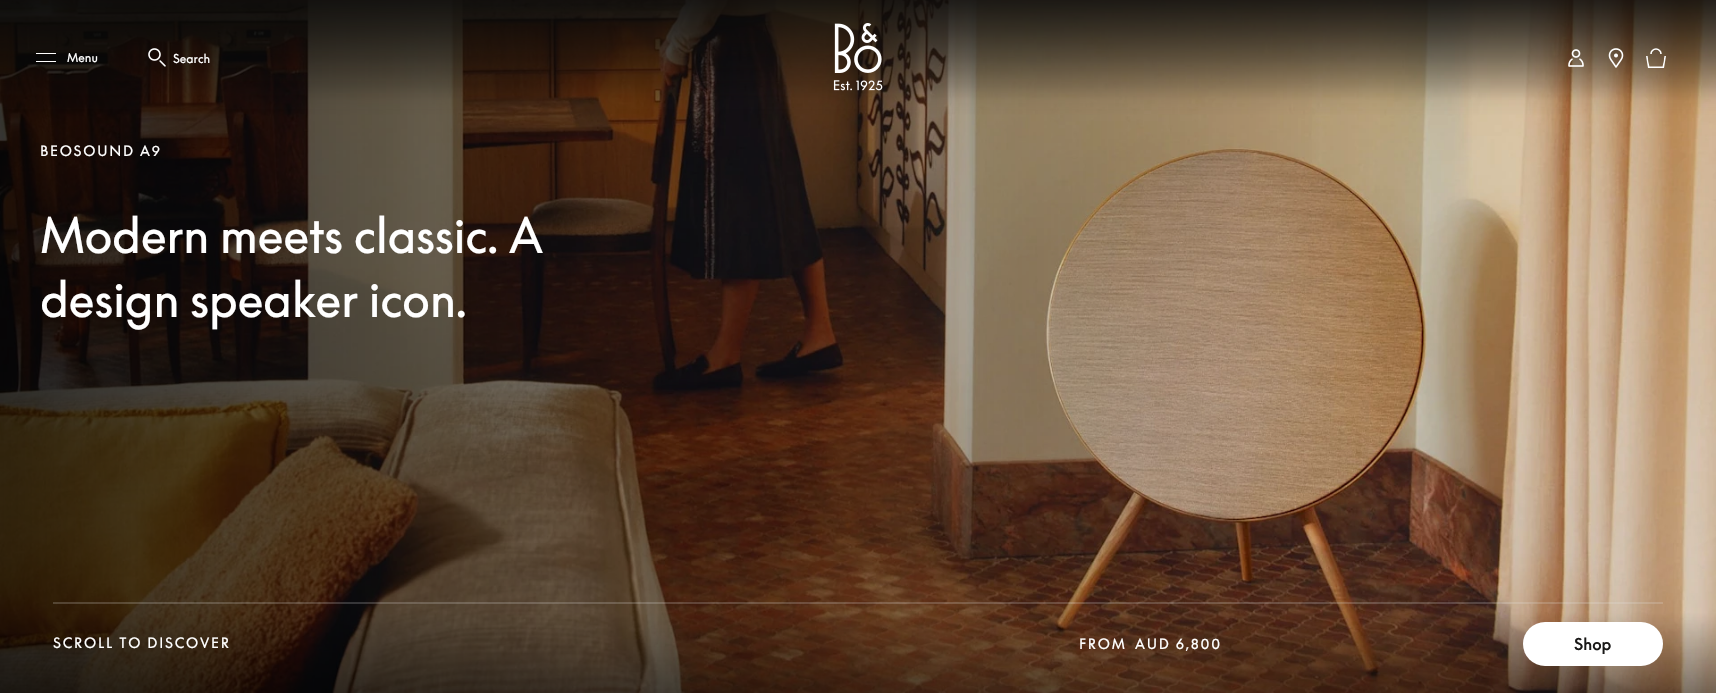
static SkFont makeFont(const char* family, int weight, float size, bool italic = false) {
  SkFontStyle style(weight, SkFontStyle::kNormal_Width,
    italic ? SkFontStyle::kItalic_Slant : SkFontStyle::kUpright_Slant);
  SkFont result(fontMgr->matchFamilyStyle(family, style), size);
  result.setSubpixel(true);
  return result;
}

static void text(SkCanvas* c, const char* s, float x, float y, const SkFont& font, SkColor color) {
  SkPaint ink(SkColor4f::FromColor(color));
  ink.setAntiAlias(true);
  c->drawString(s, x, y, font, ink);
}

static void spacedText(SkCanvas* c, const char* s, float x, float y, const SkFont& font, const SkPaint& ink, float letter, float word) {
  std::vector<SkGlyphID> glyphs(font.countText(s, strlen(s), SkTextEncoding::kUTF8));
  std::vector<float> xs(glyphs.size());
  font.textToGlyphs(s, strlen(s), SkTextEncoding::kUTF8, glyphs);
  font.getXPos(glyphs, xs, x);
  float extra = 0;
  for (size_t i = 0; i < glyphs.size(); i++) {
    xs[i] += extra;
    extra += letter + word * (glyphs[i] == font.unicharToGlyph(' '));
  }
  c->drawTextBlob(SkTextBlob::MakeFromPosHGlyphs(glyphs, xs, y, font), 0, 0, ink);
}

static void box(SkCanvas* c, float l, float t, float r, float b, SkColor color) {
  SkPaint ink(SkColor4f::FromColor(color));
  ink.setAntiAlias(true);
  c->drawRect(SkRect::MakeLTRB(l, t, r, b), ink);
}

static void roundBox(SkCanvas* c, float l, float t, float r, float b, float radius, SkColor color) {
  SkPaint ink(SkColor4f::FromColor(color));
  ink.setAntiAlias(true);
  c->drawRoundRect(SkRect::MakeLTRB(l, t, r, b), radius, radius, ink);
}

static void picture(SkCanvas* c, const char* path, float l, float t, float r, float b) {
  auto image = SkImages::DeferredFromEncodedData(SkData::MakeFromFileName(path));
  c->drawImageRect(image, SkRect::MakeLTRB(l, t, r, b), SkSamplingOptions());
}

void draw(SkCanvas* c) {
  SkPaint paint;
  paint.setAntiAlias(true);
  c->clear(0xffffffff);
  picture(c, "img_07.png", 0, 0, 1716, 693);
  box(c, 36, 53, 56, 54, 0xffffffff);
  box(c, 36, 61, 56, 62, 0xffffffff);
  SkFont face1 = makeFont("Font", 400, 12);
  text(c, "Menu", 67, 62, face1, 0xffffffff);
  picture(c, "img_01.png", 148, 48, 166, 67);
  text(c, "Search", 173, 63, face1, 0xffffffff);
  picture(c, "img_02.png", 834, 23, 882, 73);
  picture(c, "img_03.png", 833, 80, 883, 91);
  picture(c, "img_04.png", 1568, 49, 1584, 67);
  picture(c, "img_05.png", 1608, 48, 1624, 68);
  picture(c, "img_06.png", 1646, 48, 1666, 68);
  SkFont face2 = makeFont("Font", 400, 14);
  paint.setColor(0xffffffff);
  spacedText(c, "BEOSOUND A9", 40, 156, face2, paint, 1.75f, 0);
  SkFont face3 = makeFont("Font", 400, 48);
  spacedText(c, "Modern meets classic. A", 40, 253, face3, paint, -0.5f, 0);
  spacedText(c, "design speaker icon.", 40, 317, face3, paint, -0.5f, 0);
  box(c, 53, 602, 1663, 604, 0x33e5e5e5);
  spacedText(c, "SCROLL TO DISCOVER", 53, 648, face2, paint, 1.75f, 0);
  spacedText(c, "FROM", 1079, 649, face2, paint, 1.75f, 0);
  spacedText(c, "AUD 6,800", 1135, 649, face2, paint, 1.75f, 0);
  roundBox(c, 1523, 622, 1663, 666, 22, 0xffffffff);
  SkFont face4 = makeFont("Font", 500, 16);
  text(c, "Shop", 1574, 650, face4, 0xff191817);
}
